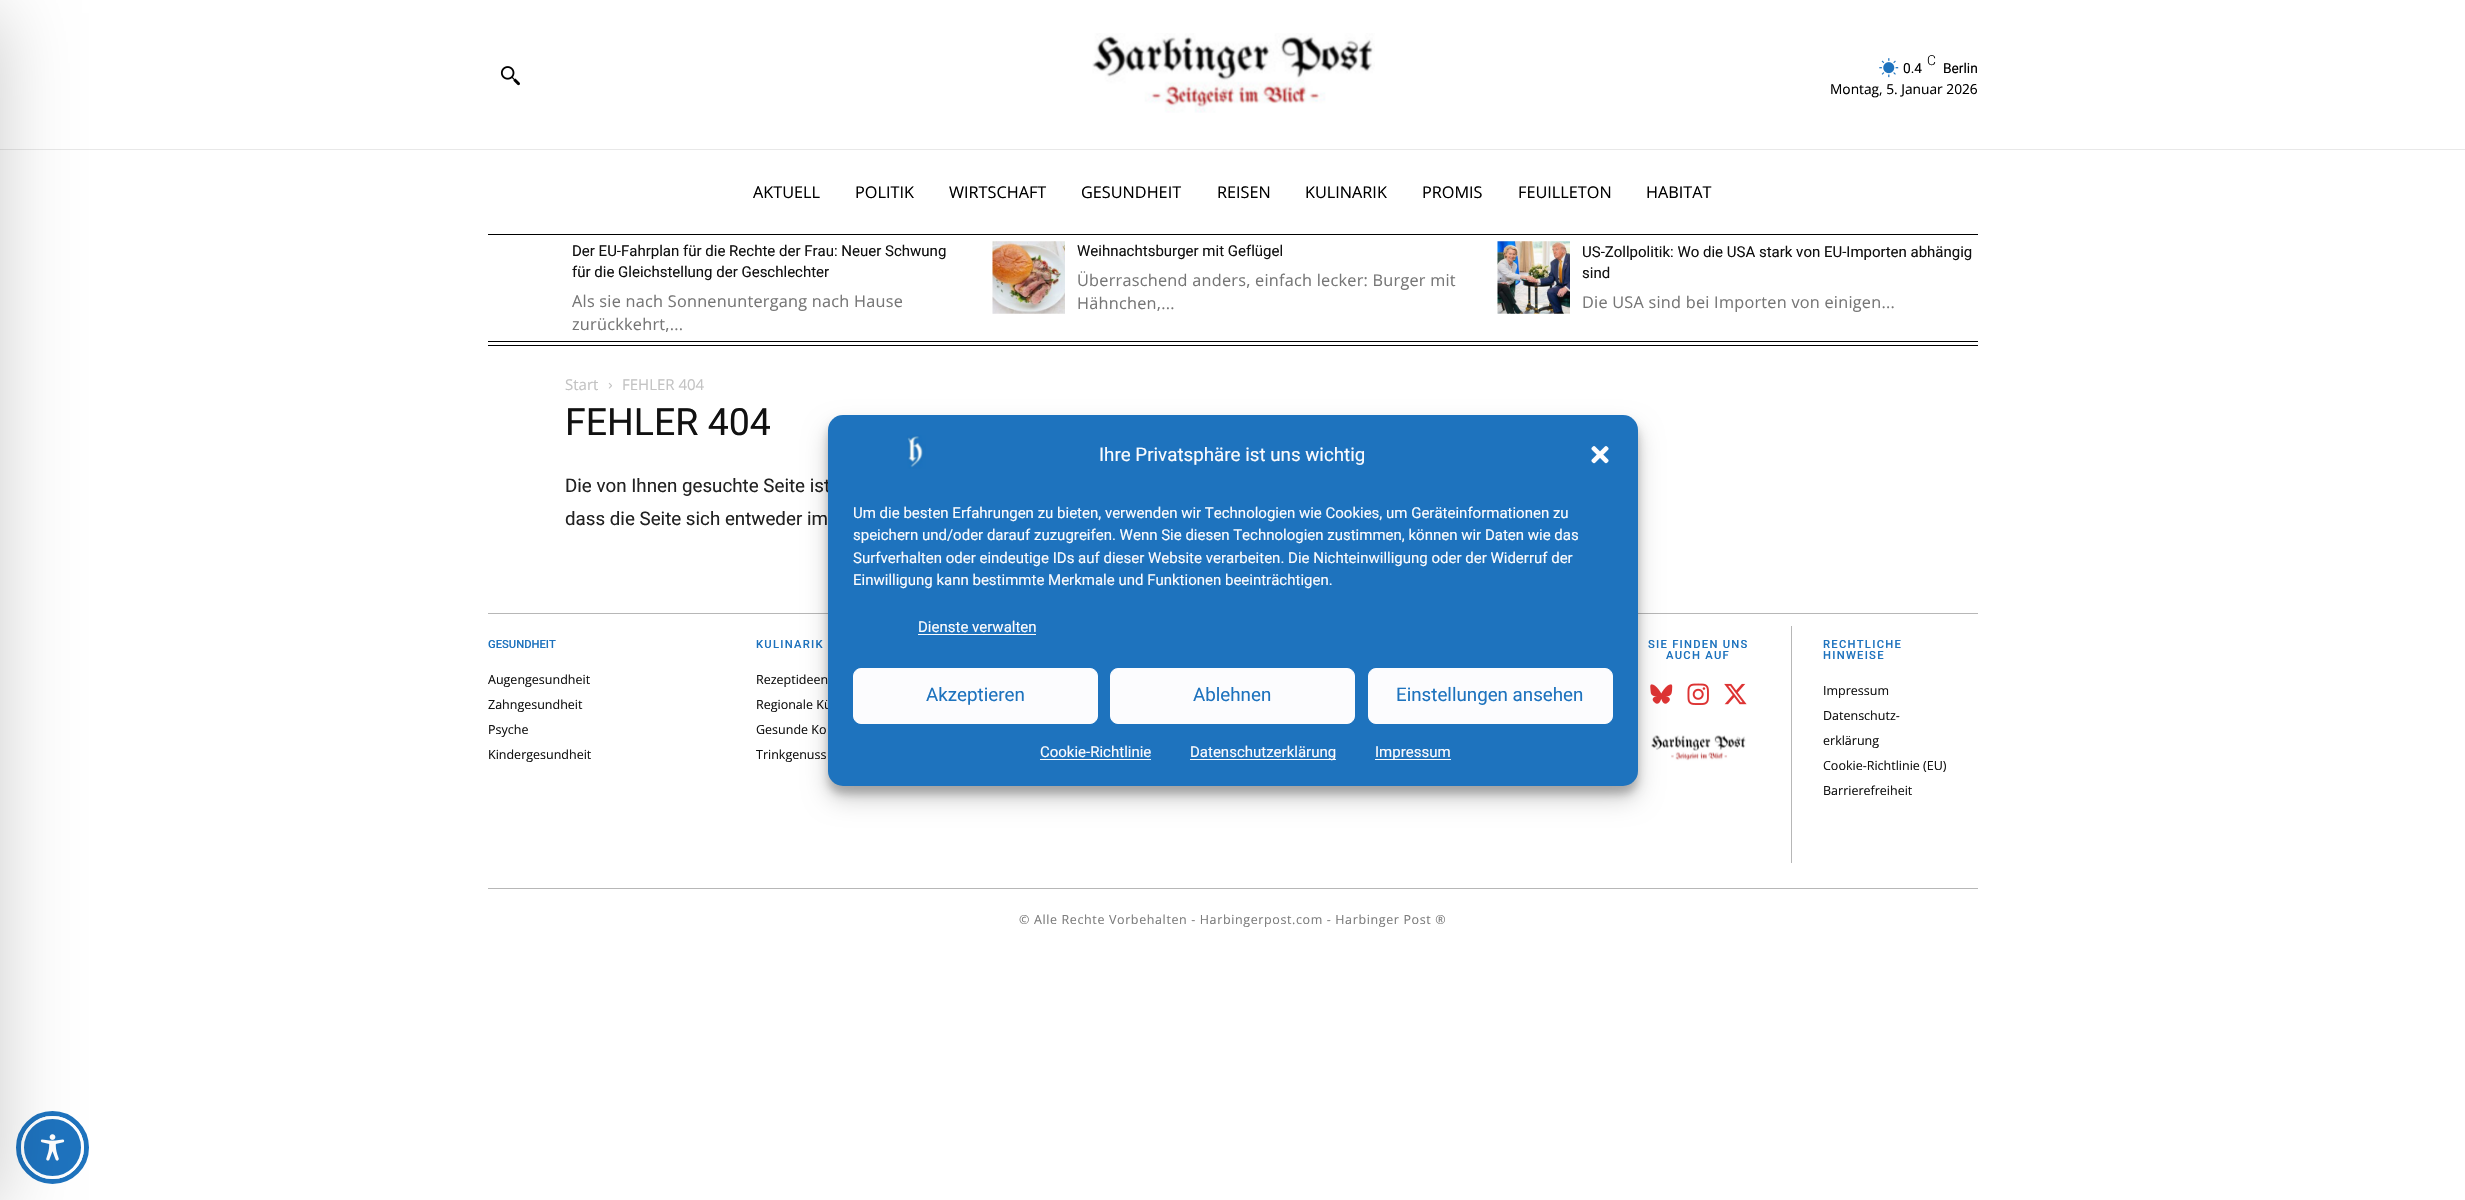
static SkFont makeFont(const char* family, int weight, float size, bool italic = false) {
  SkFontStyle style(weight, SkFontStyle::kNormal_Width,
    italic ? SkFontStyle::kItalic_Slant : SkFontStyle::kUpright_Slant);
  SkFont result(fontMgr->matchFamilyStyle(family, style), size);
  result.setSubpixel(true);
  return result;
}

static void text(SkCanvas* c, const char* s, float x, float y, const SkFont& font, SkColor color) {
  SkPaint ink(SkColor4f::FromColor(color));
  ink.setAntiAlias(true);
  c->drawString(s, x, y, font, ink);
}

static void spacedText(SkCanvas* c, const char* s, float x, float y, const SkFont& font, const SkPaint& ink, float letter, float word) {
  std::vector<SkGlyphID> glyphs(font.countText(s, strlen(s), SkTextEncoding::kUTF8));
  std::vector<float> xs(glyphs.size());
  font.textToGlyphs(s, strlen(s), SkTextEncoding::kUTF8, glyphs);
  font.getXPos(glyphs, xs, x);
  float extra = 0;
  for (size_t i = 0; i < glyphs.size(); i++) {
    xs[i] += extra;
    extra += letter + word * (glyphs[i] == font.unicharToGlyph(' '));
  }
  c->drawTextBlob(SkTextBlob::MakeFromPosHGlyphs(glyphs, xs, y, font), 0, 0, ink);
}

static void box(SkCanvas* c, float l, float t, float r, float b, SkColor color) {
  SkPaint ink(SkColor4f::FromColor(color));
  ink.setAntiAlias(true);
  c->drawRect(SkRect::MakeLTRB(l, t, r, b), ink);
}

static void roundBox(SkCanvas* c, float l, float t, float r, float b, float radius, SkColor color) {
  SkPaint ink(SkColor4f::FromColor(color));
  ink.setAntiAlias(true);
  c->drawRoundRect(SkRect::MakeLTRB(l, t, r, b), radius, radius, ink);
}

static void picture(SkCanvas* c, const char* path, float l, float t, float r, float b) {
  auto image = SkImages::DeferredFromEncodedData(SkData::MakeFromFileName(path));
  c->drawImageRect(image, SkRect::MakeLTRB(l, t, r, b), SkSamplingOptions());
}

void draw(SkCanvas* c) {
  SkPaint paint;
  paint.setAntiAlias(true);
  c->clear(0xffffffff);
  box(c, 0, 149, 2465, 150, 0xffe8e8e8);
  paint.setStyle(SkPaint::kStroke_Style);
  paint.setStrokeWidth(5);
  paint.setColor(0xff1e73be);
  c->drawCircle(52.5f, 1147.5f, 34, paint);
  paint.setStyle(SkPaint::kFill_Style);
  c->drawCircle(52.5f, 1147.5f, 30, paint);
  paint.setStyle(SkPaint::kStroke_Style);
  paint.setStrokeWidth(3);
  paint.setColor(0xffffffff);
  c->drawCircle(52.5f, 1147.5f, 30, paint);
  picture(c, "img_13.png", 40, 1134, 65, 1161);
  paint.setStyle(SkPaint::kFill_Style);
  paint.setColor(0x33000000);
  paint.setMaskFilter(SkMaskFilter::MakeBlur(kNormal_SkBlurStyle, 37.5f));
  c->drawRect(SkRect::MakeLTRB(-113, 13, 0, 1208), paint);
  paint.setMaskFilter(nullptr);
  picture(c, "img_01.png", 500, 66, 520, 86);
  picture(c, "img_02.png", 1092, 33, 1375, 113);
  picture(c, "img_03.png", 1879, 58, 1899, 78);
  SkFont face1 = makeFont("Roboto", 300, 13.75f);
  text(c, "C", 1927, 65, face1, 0xff000000);
  SkFont face2 = makeFont("Roboto", 400, 13.75f);
  text(c, "0.4", 1903, 73, face2, 0xff000000);
  text(c, "Berlin", 1943, 73, face2, 0xff000000);
  SkFont face3 = makeFont("Open Sans", 400, 13.75f);
  text(c, "Montag, 5. Januar 2026", 1830, 94, face3, 0xff000000);
  SkFont face4 = makeFont("Open Sans", 400, 16.25f);
  text(c, "AKTUELL", 753, 198, face4, 0xff000000);
  text(c, "POLITIK", 855, 198, face4, 0xff000000);
  text(c, "WIRTSCHAFT", 949, 198, face4, 0xff000000);
  text(c, "GESUNDHEIT", 1081, 198, face4, 0xff000000);
  text(c, "REISEN", 1217, 198, face4, 0xff000000);
  text(c, "KULINARIK", 1305, 198, face4, 0xff000000);
  text(c, "PROMIS", 1422, 198, face4, 0xff000000);
  text(c, "FEUILLETON", 1518, 198, face4, 0xff000000);
  text(c, "HABITAT", 1646, 198, face4, 0xff000000);
  box(c, 488, 234, 1978, 235, 0xff000000);
  box(c, 488, 345, 1978, 346, 0xff000000);
  SkFont face5 = makeFont("Roboto", 400, 15);
  text(c, "Der EU-Fahrplan für die Rechte der Frau: Neuer Schwung", 572, 256, face5, 0xff111111);
  text(c, "für die Gleichstellung der Geschlechter", 572, 277, face5, 0xff111111);
  paint.setColor(0xff767676);
  spacedText(c, "Als sie nach Sonnenuntergang nach Hause", 572, 307, face4, paint, 0.25f, 0);
  spacedText(c, "zurückkehrt,...", 572, 330, face4, paint, 0.25f, 0);
  picture(c, "img_04.png", 992, 241, 1065, 314);
  text(c, "Weihnachtsburger mit Geflügel", 1077, 256, face5, 0xff111111);
  spacedText(c, "Überraschend anders, einfach lecker: Burger mit", 1077, 286, face4, paint, 0.25f, 0);
  spacedText(c, "Hähnchen,...", 1077, 309, face4, paint, 0.25f, 0);
  picture(c, "img_05.png", 1497, 241, 1570, 314);
  text(c, "US-Zollpolitik: Wo die USA stark von EU-Importen abhängig", 1582, 257, face5, 0xff111111);
  text(c, "sind", 1582, 278, face5, 0xff111111);
  spacedText(c, "Die USA sind bei Importen von einigen...", 1582, 308, face4, paint, 0.25f, 0);
  box(c, 488, 341, 1978, 342, 0xff000000);
  SkFont face6 = makeFont("Open Sans", 400, 15);
  text(c, "Start", 565, 390, face6, 0xffc3c3c3);
  picture(c, "img_06.png", 608, 382, 612, 389);
  text(c, "FEHLER 404", 622, 390, face6, 0xffc3c3c3);
  SkFont face7 = makeFont("Roboto", 400, 37.5f);
  text(c, "FEHLER 404", 565, 435, face7, 0xff111111);
  SkFont face8 = makeFont("Roboto", 400, 18.75f);
  text(c, "Die von Ihnen gesuchte Seite ist", 565, 492, face8, 0xff222222);
  text(c, "dass die Seite sich entweder im", 565, 525, face8, 0xff222222);
  box(c, 488, 613, 1978, 614, 0xffb7b7b7);
  SkFont face9 = makeFont("Roboto", 500, 11.25f);
  text(c, "GESUNDHEIT", 488, 648, face9, 0xff1e73be);
  SkFont face10 = makeFont("Open Sans", 400, 12.5f);
  text(c, "Augengesundheit", 488, 684, face10, 0xff111111);
  text(c, "Zahngesundheit", 488, 709, face10, 0xff111111);
  text(c, "Psyche", 488, 734, face10, 0xff111111);
  text(c, "Kindergesundheit", 488, 759, face10, 0xff111111);
  paint.setColor(0xff1e73be);
  spacedText(c, "KULINARIK", 756, 648, face9, paint, 1.25f, 0);
  text(c, "Rezeptideen", 756, 684, face10, 0xff111111);
  text(c, "Regionale Kü", 756, 709, face10, 0xff111111);
  text(c, "Gesunde Ko", 756, 734, face10, 0xff111111);
  text(c, "Trinkgenuss", 756, 759, face10, 0xff111111);
  spacedText(c, "SIE FINDEN UNS", 1648, 648, face9, paint, 1.25f, 0);
  spacedText(c, "AUCH AUF", 1666, 659, face9, paint, 1.25f, 0);
  picture(c, "img_07.png", 1650, 684, 1673, 704);
  picture(c, "img_08.png", 1687, 683, 1709, 705);
  picture(c, "img_09.png", 1724, 683, 1747, 705);
  picture(c, "img_10.png", 1651, 735, 1746, 761);
  box(c, 1791, 626, 1792, 863, 0xffb7b7b7);
  spacedText(c, "RECHTLICHE", 1823, 648, face9, paint, 1.25f, 0);
  spacedText(c, "HINWEISE", 1823, 659, face9, paint, 1.25f, 0);
  text(c, "Impressum", 1823, 695, face10, 0xff111111);
  text(c, "Datenschutz-", 1823, 720, face10, 0xff111111);
  text(c, "erklärung", 1823, 745, face10, 0xff111111);
  text(c, "Cookie-Richtlinie (EU)", 1823, 770, face10, 0xff111111);
  text(c, "Barrierefreiheit", 1823, 795, face10, 0xff111111);
  box(c, 488, 888, 1978, 889, 0xffb7b7b7);
  paint.setColor(0xff7c7c7c);
  spacedText(c, "© Alle Rechte Vorbehalten - Harbingerpost.com - Harbinger Post ®", 1019, 924, face10, paint, 0.62f, 0);
  paint.setColor(0x3b000000);
  paint.setMaskFilter(SkMaskFilter::MakeBlur(kNormal_SkBlurStyle, 4));
  c->drawRoundRect(SkRect::MakeLTRB(828, 423, 1638, 794), 15, 15, paint);
  paint.setMaskFilter(nullptr);
  paint.setColor(0x30000000);
  paint.setMaskFilter(SkMaskFilter::MakeBlur(kNormal_SkBlurStyle, 12.5f));
  c->drawRoundRect(SkRect::MakeLTRB(828, 428, 1638, 799), 15, 15, paint);
  paint.setMaskFilter(nullptr);
  roundBox(c, 828, 415, 1638, 786, 15, 0xff1e73be);
  picture(c, "img_11.png", 907, 435, 926, 469);
  text(c, "Ihre Privatsphäre ist uns wichtig", 1099, 461, face8, 0xfffcfcfe);
  picture(c, "img_12.png", 1591, 446, 1609, 464);
  text(c, "Um die besten Erfahrungen zu bieten, verwenden wir Technologien wie Cookies, um Geräteinformationen zu", 853, 518, face5, 0xfffcfcfe);
  text(c, "speichern und/oder darauf zuzugreifen. Wenn Sie diesen Technologien zustimmen, können wir Daten wie das", 853, 540, face5, 0xfffcfcfe);
  text(c, "Surfverhalten oder eindeutige IDs auf dieser Website verarbeiten. Die Nichteinwilligung oder der Widerruf der", 853, 563, face5, 0xfffcfcfe);
  text(c, "Einwilligung kann bestimmte Merkmale und Funktionen beeinträchtigen.", 853, 585, face5, 0xfffcfcfe);
  text(c, "Dienste verwalten", 918, 632, face5, 0xfffcfcfe);
  box(c, 918, 634, 1036, 635, 0xfffcfcfe);
  paint.setColor(0xfffcfcfe);
  c->drawRoundRect(SkRect::MakeLTRB(853.5f, 668.5f, 1097.5f, 723.5f), 7.5f, 7.5f, paint);
  paint.setStyle(SkPaint::kStroke_Style);
  paint.setStrokeWidth(1);
  c->drawRoundRect(SkRect::MakeLTRB(853.5f, 668.5f, 1097.5f, 723.5f), 7.5f, 7.5f, paint);
  text(c, "Akzeptieren", 926, 701, face8, 0xff1e73be);
  paint.setStyle(SkPaint::kFill_Style);
  c->drawRoundRect(SkRect::MakeLTRB(1110.5f, 668.5f, 1354.5f, 723.5f), 7.5f, 7.5f, paint);
  paint.setStyle(SkPaint::kStroke_Style);
  c->drawRoundRect(SkRect::MakeLTRB(1110.5f, 668.5f, 1354.5f, 723.5f), 7.5f, 7.5f, paint);
  text(c, "Ablehnen", 1193, 701, face8, 0xff1e73be);
  paint.setStyle(SkPaint::kFill_Style);
  c->drawRoundRect(SkRect::MakeLTRB(1368.5f, 668.5f, 1612.5f, 723.5f), 7.5f, 7.5f, paint);
  paint.setStyle(SkPaint::kStroke_Style);
  c->drawRoundRect(SkRect::MakeLTRB(1368.5f, 668.5f, 1612.5f, 723.5f), 7.5f, 7.5f, paint);
  text(c, "Einstellungen ansehen", 1396, 701, face8, 0xff1e73be);
  text(c, "Cookie-Richtlinie", 1040, 757, face5, 0xfffcfcfe);
  box(c, 1040, 759, 1151, 760, 0xfffcfcfe);
  box(c, 1190, 759, 1336, 760, 0xfffcfcfe);
  text(c, "Datenschutzerklärung", 1190, 757, face5, 0xfffcfcfe);
  box(c, 1375, 759, 1451, 760, 0xfffcfcfe);
  text(c, "Impressum", 1375, 757, face5, 0xfffcfcfe);
}
